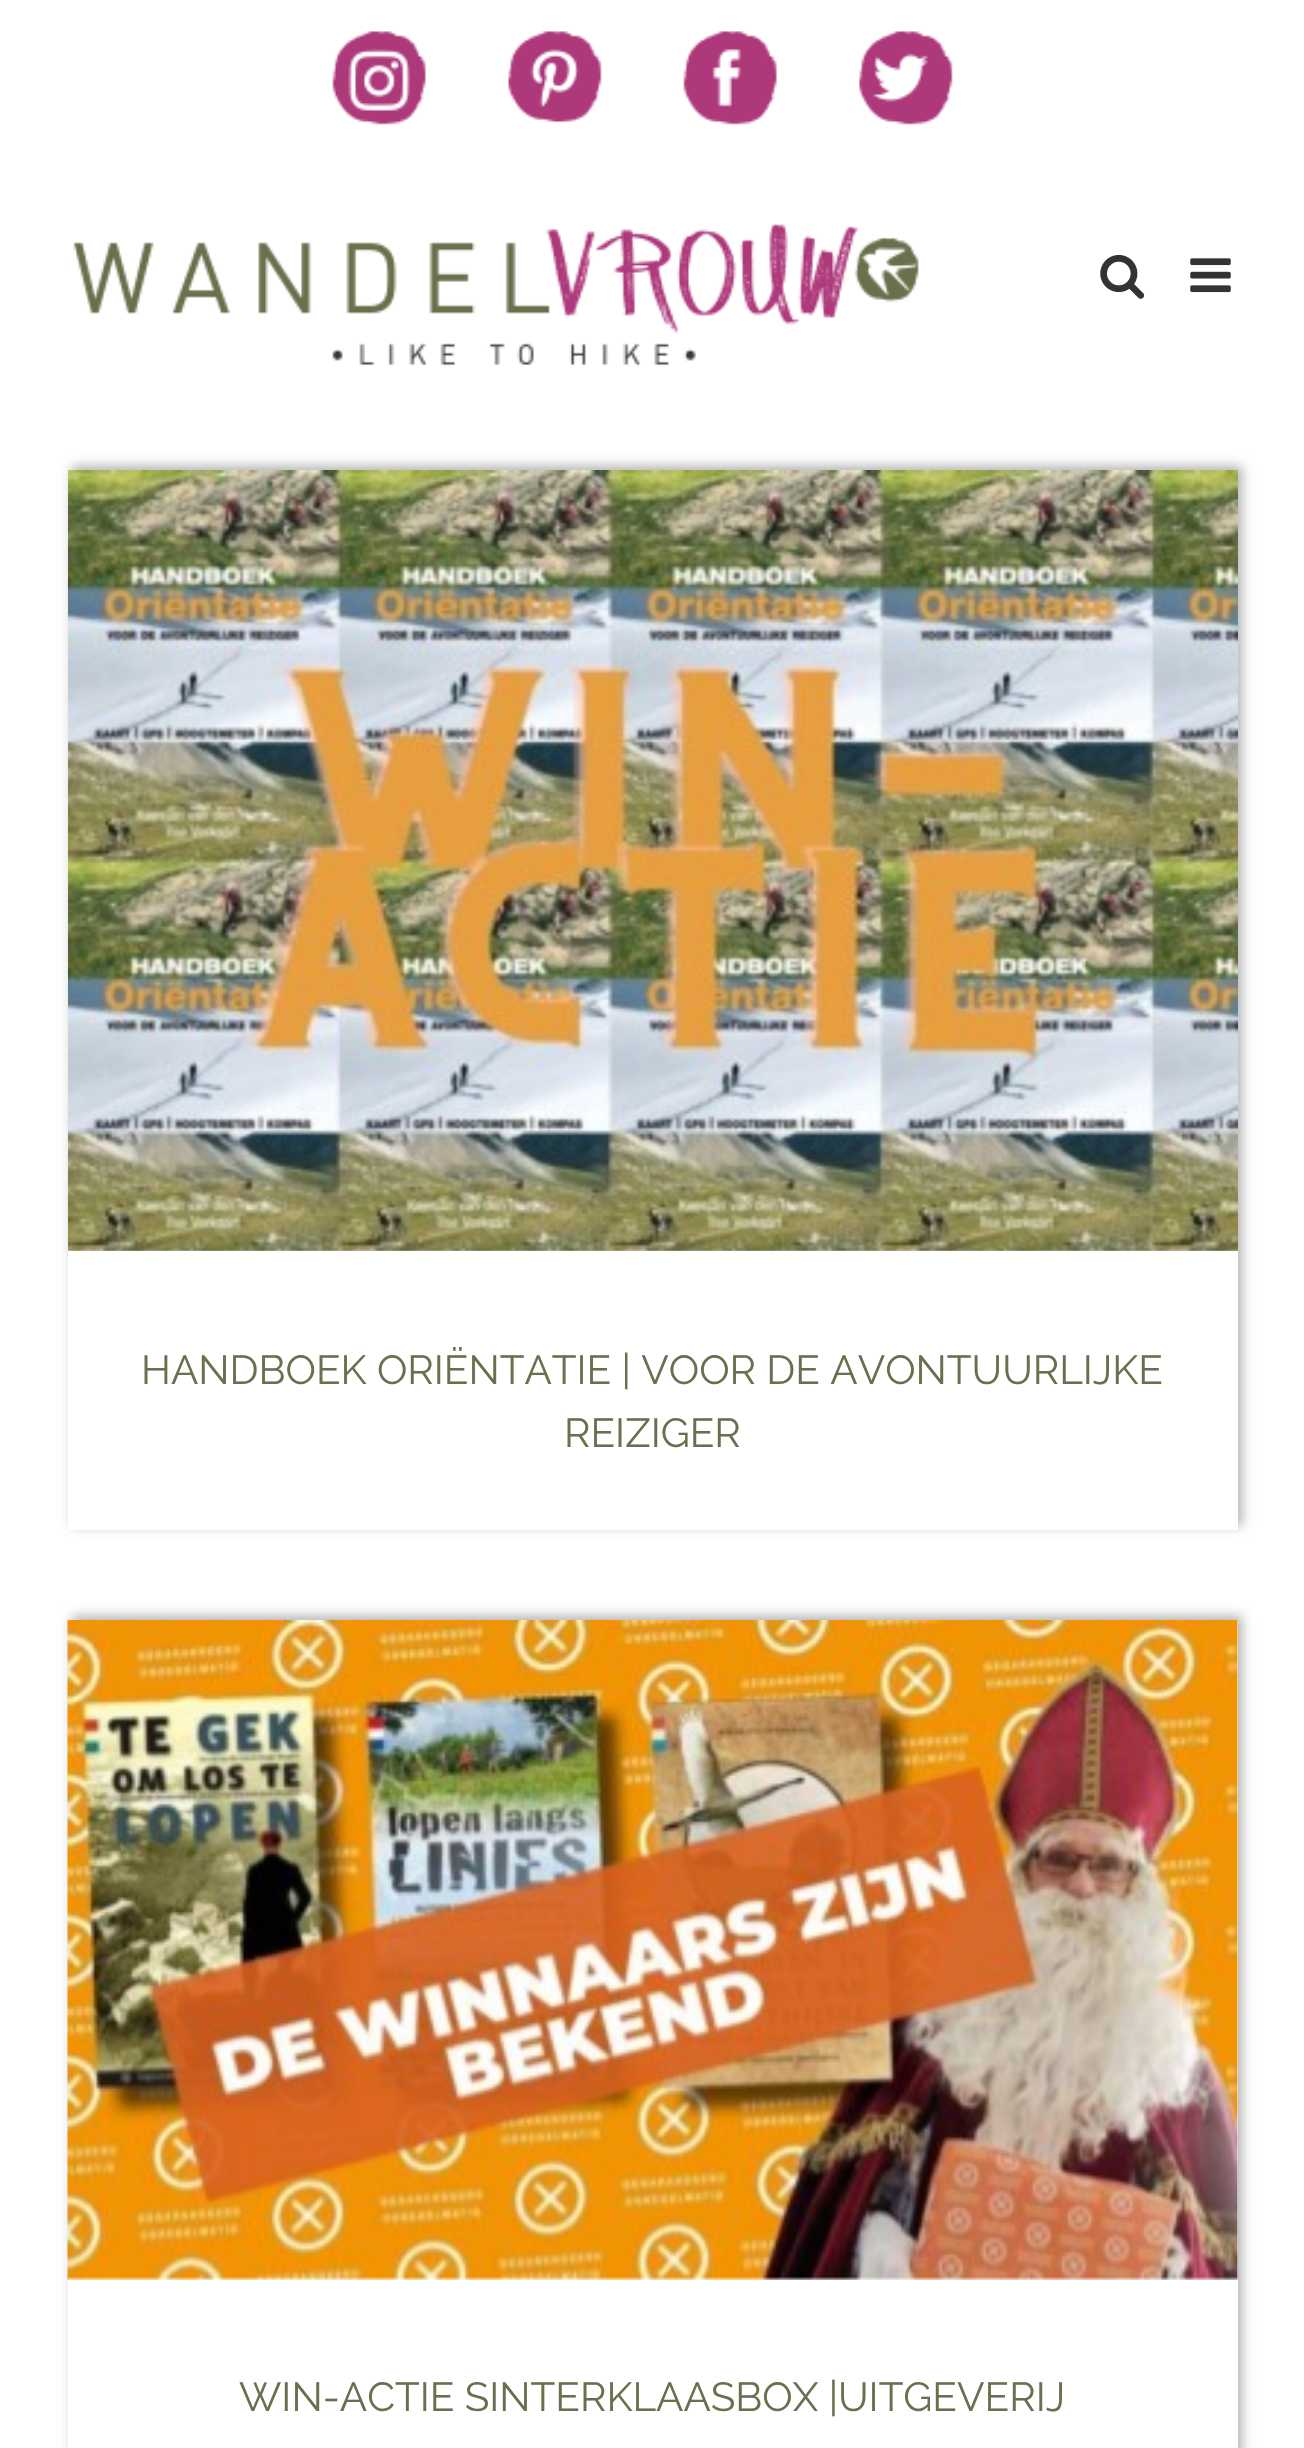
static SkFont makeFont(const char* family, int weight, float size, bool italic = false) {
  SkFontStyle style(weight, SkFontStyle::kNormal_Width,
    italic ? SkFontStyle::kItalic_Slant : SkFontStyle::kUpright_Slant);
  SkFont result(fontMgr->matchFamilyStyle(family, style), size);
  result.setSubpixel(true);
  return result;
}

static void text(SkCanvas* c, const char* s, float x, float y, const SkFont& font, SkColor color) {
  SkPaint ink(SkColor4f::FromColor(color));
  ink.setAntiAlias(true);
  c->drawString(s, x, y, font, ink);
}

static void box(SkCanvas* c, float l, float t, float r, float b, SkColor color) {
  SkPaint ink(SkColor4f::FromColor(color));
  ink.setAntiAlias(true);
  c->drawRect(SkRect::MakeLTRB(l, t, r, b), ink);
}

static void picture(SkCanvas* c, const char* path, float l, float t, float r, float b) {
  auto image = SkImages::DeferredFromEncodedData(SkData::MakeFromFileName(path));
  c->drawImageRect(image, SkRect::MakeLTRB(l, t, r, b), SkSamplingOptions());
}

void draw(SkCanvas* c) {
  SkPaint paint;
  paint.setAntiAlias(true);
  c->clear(0xffffffff);
  picture(c, "img_01.png", 332, 31, 426, 125);
  picture(c, "img_02.png", 508, 31, 602, 123);
  picture(c, "img_03.png", 683, 31, 777, 125);
  picture(c, "img_04.png", 859, 31, 953, 125);
  picture(c, "img_05.png", 73, 224, 919, 366);
  picture(c, "img_06.png", 1100, 254, 1145, 299);
  picture(c, "img_07.png", 1190, 258, 1231, 293);
  paint.setColor(0x4d000000);
  paint.setMaskFilter(SkMaskFilter::MakeBlur(kNormal_SkBlurStyle, 5.5f));
  c->drawRect(SkRect::MakeLTRB(72, 466, 1242, 1526), paint);
  paint.setMaskFilter(nullptr);
  box(c, 68, 1250, 1238, 1530, 0xffffffff);
  picture(c, "img_08.png", 68, 470, 1238, 1251);
  SkFont face1 = makeFont("Raleway", 400, 40.5f);
  text(c, "HANDBOEK ORIËNTATIE | VOOR DE AVONTUURLIJKE", 141, 1384, face1, 0xff69704d);
  text(c, "REIZIGER", 564, 1447, face1, 0xff69704d);
  paint.setMaskFilter(SkMaskFilter::MakeBlur(kNormal_SkBlurStyle, 5.5f));
  c->drawRect(SkRect::MakeLTRB(72, 1616, 1242, 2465), paint);
  paint.setMaskFilter(nullptr);
  box(c, 68, 1620, 1238, 2448, 0xffffffff);
  picture(c, "img_09.png", 67, 1620, 1238, 2280);
  text(c, "WIN-ACTIE SINTERKLAASBOX |UITGEVERIJ", 239, 2411, face1, 0xff69704d);
}
